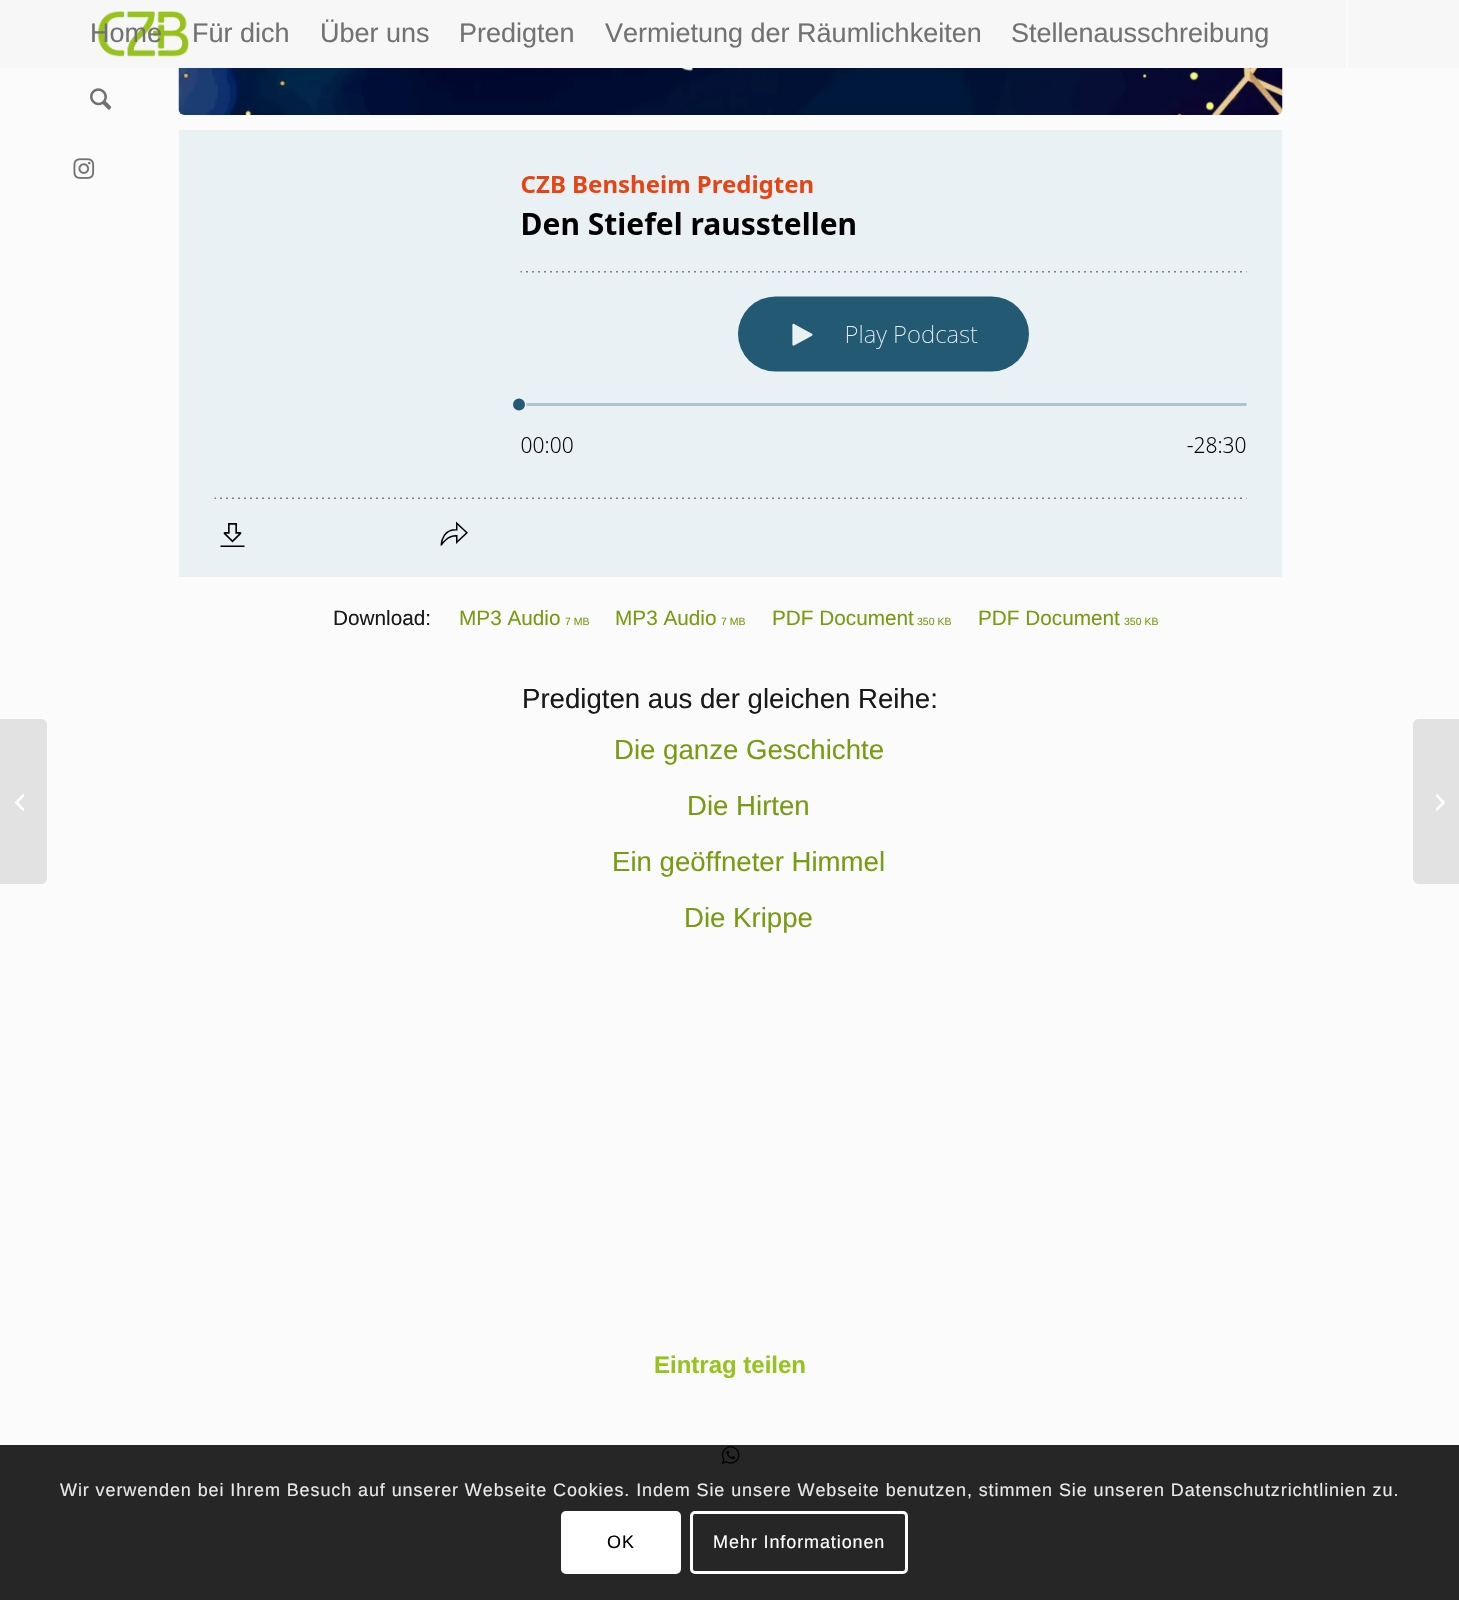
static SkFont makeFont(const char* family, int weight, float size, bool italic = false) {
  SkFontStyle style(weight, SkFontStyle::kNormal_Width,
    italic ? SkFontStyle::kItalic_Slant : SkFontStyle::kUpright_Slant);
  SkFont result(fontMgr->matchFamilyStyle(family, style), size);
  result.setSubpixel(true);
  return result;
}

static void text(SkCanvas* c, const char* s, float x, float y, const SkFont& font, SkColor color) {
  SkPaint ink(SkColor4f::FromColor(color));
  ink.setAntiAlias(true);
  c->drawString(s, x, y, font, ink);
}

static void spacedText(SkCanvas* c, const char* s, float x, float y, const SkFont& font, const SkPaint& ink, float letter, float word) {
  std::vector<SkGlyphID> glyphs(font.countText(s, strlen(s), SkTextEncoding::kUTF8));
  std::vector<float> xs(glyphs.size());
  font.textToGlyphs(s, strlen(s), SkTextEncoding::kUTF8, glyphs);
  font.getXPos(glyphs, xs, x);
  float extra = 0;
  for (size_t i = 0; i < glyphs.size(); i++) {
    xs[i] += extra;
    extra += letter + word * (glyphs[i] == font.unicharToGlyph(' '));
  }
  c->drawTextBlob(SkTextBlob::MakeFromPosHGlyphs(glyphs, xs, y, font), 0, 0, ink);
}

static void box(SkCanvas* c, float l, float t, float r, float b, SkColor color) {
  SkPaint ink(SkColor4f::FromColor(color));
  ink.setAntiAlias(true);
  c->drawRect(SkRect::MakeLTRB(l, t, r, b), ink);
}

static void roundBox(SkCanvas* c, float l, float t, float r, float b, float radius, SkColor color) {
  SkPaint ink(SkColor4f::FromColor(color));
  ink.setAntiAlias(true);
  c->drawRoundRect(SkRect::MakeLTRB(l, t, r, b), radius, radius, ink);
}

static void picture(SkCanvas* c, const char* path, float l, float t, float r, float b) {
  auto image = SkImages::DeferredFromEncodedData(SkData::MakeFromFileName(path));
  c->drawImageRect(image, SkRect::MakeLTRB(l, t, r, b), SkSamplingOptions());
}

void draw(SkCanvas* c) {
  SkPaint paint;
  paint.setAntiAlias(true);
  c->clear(0xfffbfbfb);
  box(c, 0, 0, 1459, 68, 0xfff7f7f7);
  picture(c, "img_01.png", 97, 11, 189, 57);
  box(c, 1346, 0, 1348, 68, 0xfffbfbfb);
  SkFont face1 = makeFont("Liberation Sans", 400, 27);
  text(c, "Home", 90, 42, face1, 0xff727272);
  text(c, "Für dich", 192, 42, face1, 0xff727272);
  text(c, "Über uns", 320, 42, face1, 0xff727272);
  text(c, "Predigten", 459, 42, face1, 0xff727272);
  text(c, "Vermietung der Räumlichkeiten", 605, 42, face1, 0xff727272);
  text(c, "Stellenausschreibung", 1011, 42, face1, 0xff727272);
  picture(c, "img_02.png", 90, 88, 111, 110);
  picture(c, "img_03.png", 73, 158, 95, 179);
  paint.setColor(0xffe2e2e2);
  c->drawPath(SkPathBuilder().moveTo(0, 719).lineTo(41, 719).cubicTo(44.5f, 719, 47, 721.5f, 47, 725).lineTo(47, 878).cubicTo(47, 881.5f, 44.5f, 884, 41, 884).lineTo(0, 884).close().detach(), paint);
  picture(c, "img_04.png", 15, 794, 24, 811);
  box(c, 0, 1445, 1459, 1600, 0xff262626);
  picture(c, "img_05.png", 178, 68, 1283, 115);
  picture(c, "img_06.png", 178, 130, 1283, 577);
  SkFont face2 = makeFont("Liberation Sans", 400, 20.75f);
  text(c, "Download:", 333, 625, face2, 0xff191919);
  text(c, "MP3 Audio", 459, 625, face2, 0xff779b12);
  SkFont face3 = makeFont("Liberation Sans", 400, 10.5f);
  text(c, "7 MB", 565, 625, face3, 0xff779b12);
  text(c, "MP3 Audio", 615, 625, face2, 0xff779b12);
  text(c, "7 MB", 721, 625, face3, 0xff779b12);
  text(c, "PDF Document", 772, 625, face2, 0xff779b12);
  text(c, "350 KB", 917, 625, face3, 0xff779b12);
  text(c, "PDF Document", 978, 625, face2, 0xff779b12);
  text(c, "350 KB", 1124, 625, face3, 0xff779b12);
  SkFont face4 = makeFont("Liberation Sans", 400, 27.6f);
  text(c, "Predigten aus der gleichen Reihe:", 522, 708, face4, 0xff191919);
  text(c, "Die ganze Geschichte", 614, 759, face4, 0xff779b12);
  text(c, "Die Hirten", 687, 815, face4, 0xff779b12);
  text(c, "Ein geöffneter Himmel", 612, 871, face4, 0xff779b12);
  text(c, "Die Krippe", 684, 927, face4, 0xff779b12);
  SkFont face5 = makeFont("Liberation Sans", 700, 24);
  text(c, "Eintrag teilen", 654, 1373, face5, 0xff97c31e);
  picture(c, "img_07.png", 721, 1446, 740, 1465);
  c->drawPath(SkPathBuilder().moveTo(1419, 719).lineTo(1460, 719).lineTo(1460, 884).lineTo(1419, 884).cubicTo(1415.5f, 884, 1413, 881.5f, 1413, 878).lineTo(1413, 725).cubicTo(1413, 721.5f, 1415.5f, 719, 1419, 719).close().detach(), paint);
  picture(c, "img_08.png", 1436, 794, 1445, 811);
  SkFont face6 = makeFont("Liberation Sans", 400, 18);
  paint.setColor(0xffe9e9e9);
  spacedText(c, "Wir verwenden bei Ihrem Besuch auf unserer Webseite Cookies. Indem Sie unsere Webseite benutzen, stimmen Sie unseren Datenschutzrichtlinien zu.", 60, 1496, face6, paint, 0.9f, 0);
  roundBox(c, 561, 1511, 681, 1574, 5, 0xffffffff);
  paint.setColor(0xff000000);
  spacedText(c, "OK", 607, 1548, face6, paint, 0.9f, 0);
  paint.setStyle(SkPaint::kStroke_Style);
  paint.setStrokeWidth(3);
  paint.setColor(0xffffffff);
  c->drawRoundRect(SkRect::MakeLTRB(691.5f, 1512.5f, 906.5f, 1572.5f), 3.5f, 3.5f, paint);
  paint.setStyle(SkPaint::kFill_Style);
  spacedText(c, "Mehr Informationen", 713, 1548, face6, paint, 0.9f, 0);
}
